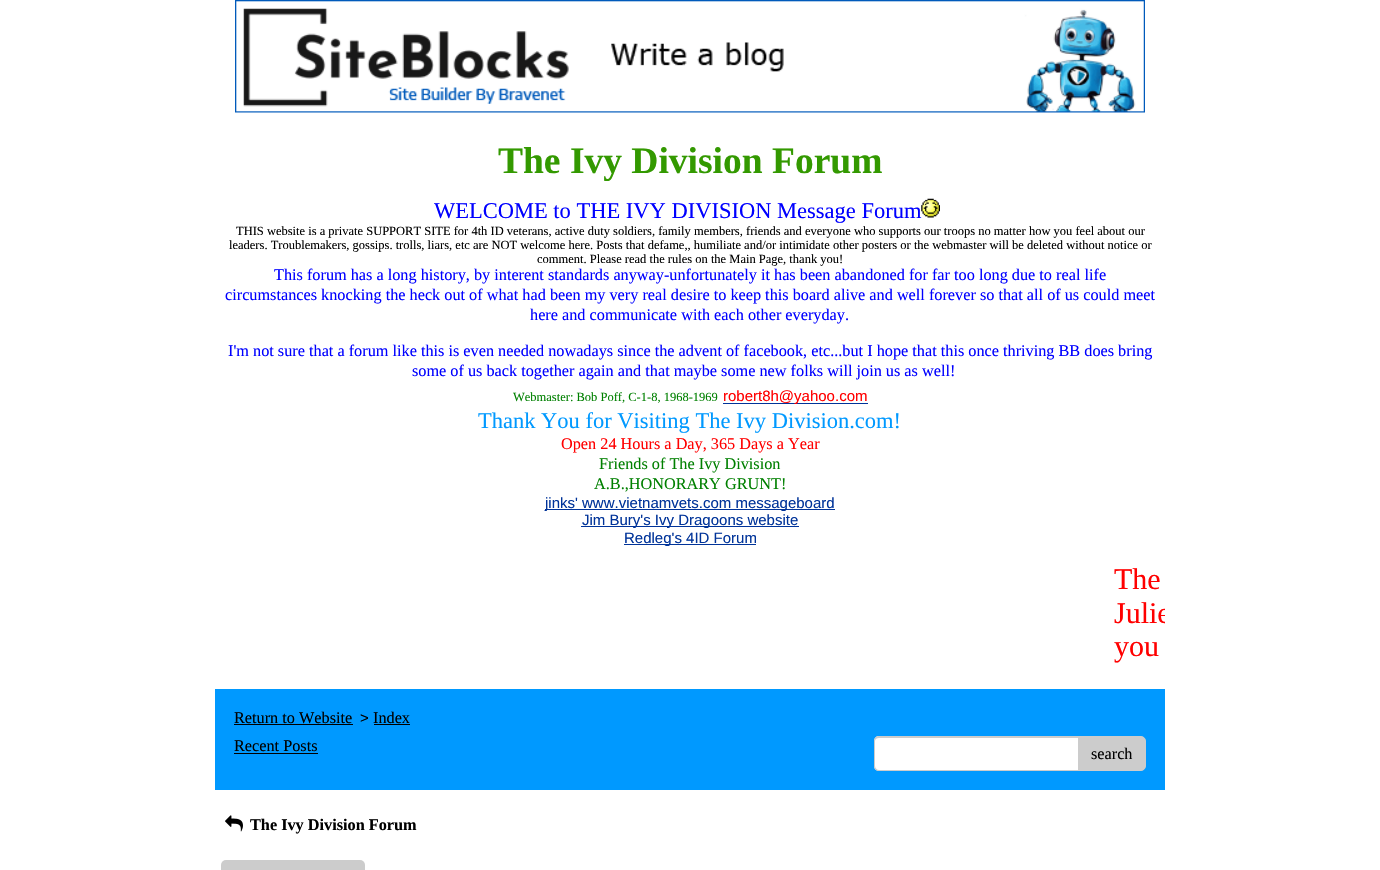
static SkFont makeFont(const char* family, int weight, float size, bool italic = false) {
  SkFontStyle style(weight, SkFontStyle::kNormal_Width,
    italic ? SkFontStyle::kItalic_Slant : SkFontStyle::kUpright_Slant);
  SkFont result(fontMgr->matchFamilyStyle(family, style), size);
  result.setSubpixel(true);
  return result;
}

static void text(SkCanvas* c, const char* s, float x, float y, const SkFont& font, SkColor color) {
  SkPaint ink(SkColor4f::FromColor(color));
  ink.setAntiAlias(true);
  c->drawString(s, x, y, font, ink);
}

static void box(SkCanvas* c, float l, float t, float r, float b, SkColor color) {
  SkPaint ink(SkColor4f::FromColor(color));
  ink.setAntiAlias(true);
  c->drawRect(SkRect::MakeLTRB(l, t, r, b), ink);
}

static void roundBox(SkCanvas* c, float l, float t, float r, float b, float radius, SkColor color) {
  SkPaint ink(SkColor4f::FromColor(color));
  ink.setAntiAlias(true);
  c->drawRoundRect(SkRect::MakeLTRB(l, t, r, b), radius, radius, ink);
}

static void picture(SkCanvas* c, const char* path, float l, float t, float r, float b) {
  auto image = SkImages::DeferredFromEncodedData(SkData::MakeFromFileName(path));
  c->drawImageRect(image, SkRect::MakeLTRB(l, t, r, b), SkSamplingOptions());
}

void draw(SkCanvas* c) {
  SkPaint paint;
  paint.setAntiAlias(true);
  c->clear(0xffffffff);
  picture(c, "img_01.png", 235, 0, 1145, 113);
  SkFont face1 = makeFont("Liberation Serif", 700, 37.5f);
  text(c, "The Ivy Division Forum", 498, 173, face1, 0xff339900);
  SkFont face2 = makeFont("Liberation Serif", 400, 22.5f);
  text(c, "WELCOME to THE IVY DIVISION Message Forum", 434, 218, face2, 0xff0000ff);
  picture(c, "img_02.png", 921, 198, 940, 218);
  SkFont face3 = makeFont("Liberation Serif", 400, 12.5f);
  text(c, "THIS website is a private SUPPORT SITE for 4th ID veterans, active duty soldiers, family members, friends and everyone who supports our troops no matter how you feel about our", 236, 235, face3, 0xff000000);
  text(c, "leaders. Troublemakers, gossips. trolls, liars, etc are NOT welcome here. Posts that defame,, humiliate and/or intimidate other posters or the webmaster will be deleted without notice or", 229, 249, face3, 0xff000000);
  text(c, "comment. Please read the rules on the Main Page, thank you!", 537, 263, face3, 0xff000000);
  SkFont face4 = makeFont("Liberation Serif", 400, 16.25f);
  text(c, "This forum has a long history, by interent standards anyway-unfortunately it has been abandoned for far too long due to real life", 274, 280, face4, 0xff0000ff);
  text(c, "circumstances knocking the heck out of what had been my very real desire to keep this board alive and well forever so that all of us could meet", 225, 300, face4, 0xff0000ff);
  text(c, "here and communicate with each other everyday.", 530, 320, face4, 0xff0000ff);
  text(c, "I'm not sure that a forum like this is even needed nowadays since the advent of facebook, etc...but I hope that this once thriving BB does bring", 228, 356, face4, 0xff0000ff);
  text(c, "some of us back together again and that maybe some new folks will join us as well!", 412, 376, face4, 0xff0000ff);
  text(c, "Webmaster: Bob Poff, C-1-8, 1968-1969", 513, 401, face3, 0xff008000);
  box(c, 723, 403, 868, 404, 0xff003399);
  SkFont face5 = makeFont("Liberation Sans", 400, 15);
  text(c, "robert8h@yahoo.com", 723, 401, face5, 0xffff0000);
  text(c, "Thank You for Visiting The Ivy Division.com!", 478, 428, face2, 0xff0099ff);
  text(c, "Open 24 Hours a Day, 365 Days a Year", 561, 449, face4, 0xffff0000);
  text(c, "Friends of The Ivy Division", 599, 469, face4, 0xff008000);
  text(c, "A.B.,HONORARY GRUNT!", 594, 489, face4, 0xff008000);
  box(c, 545, 509, 835, 510, 0xff003399);
  text(c, "jinks' www.vietnamvets.com messageboard", 545, 508, face5, 0xff003399);
  box(c, 581, 526, 799, 527, 0xff003399);
  text(c, "Jim Bury's Ivy Dragoons website", 582, 525, face5, 0xff003399);
  box(c, 624, 544, 756, 545, 0xff003399);
  text(c, "Redleg's 4ID Forum", 624, 543, face5, 0xff003399);
  SkFont face6 = makeFont("Liberation Serif", 400, 30);
  text(c, "The", 1114, 589, face6, 0xffff0000);
  c->save();
  c->clipRect(SkRect::MakeLTRB(215, 563, 1165, 664));
  text(c, "Julie", 1114, 623, face6, 0xffff0000);
  c->restore();
  text(c, "you", 1114, 656, face6, 0xffff0000);
  box(c, 215, 689, 1165, 790, 0xff0099ff);
  text(c, "Return to Website", 234, 723, face4, 0xff000000);
  box(c, 234, 724, 353, 725, 0xff000000);
  text(c, ">", 360, 723, face5, 0xff000000);
  text(c, "Index", 373, 723, face4, 0xff000000);
  box(c, 374, 724, 410, 725, 0xff000000);
  text(c, "Recent Posts", 234, 751, face4, 0xff000000);
  box(c, 234, 753, 318, 754, 0xff000000);
  roundBox(c, 874, 736, 1134, 771, 5, 0xffffffff);
  paint.setColor(0xffcccccc);
  c->drawPath(SkPathBuilder(SkPathFillType::kEvenOdd).moveTo(879, 736).lineTo(1129, 736).cubicTo(1132, 736, 1134, 738, 1134, 741).lineTo(1134, 766).cubicTo(1134, 769, 1132, 771, 1129, 771).lineTo(879, 771).cubicTo(876, 771, 874, 769, 874, 766).lineTo(874, 741).cubicTo(874, 738, 876, 736, 879, 736).close().moveTo(879, 738).lineTo(1129, 738).cubicTo(1132, 738, 1134, 739, 1134, 741).lineTo(1134, 766).cubicTo(1134, 768, 1132, 770, 1129, 770).lineTo(879, 770).cubicTo(877, 770, 875, 768, 875, 766).lineTo(875, 741).cubicTo(875, 739, 877, 738, 879, 738).close().detach(), paint);
  c->drawPath(SkPathBuilder().moveTo(1078.5f, 736.5f).lineTo(1141, 736.5f).cubicTo(1143.5f, 736.5f, 1145.5f, 738.5f, 1145.5f, 741).lineTo(1145.5f, 766).cubicTo(1145.5f, 768.5f, 1143.5f, 770.5f, 1141, 770.5f).lineTo(1078.5f, 770.5f).close().detach(), paint);
  paint.setStyle(SkPaint::kStroke_Style);
  paint.setStrokeWidth(1);
  c->drawPath(SkPathBuilder().moveTo(1078.5f, 736.5f).lineTo(1141, 736.5f).cubicTo(1143.5f, 736.5f, 1145.5f, 738.5f, 1145.5f, 741).lineTo(1145.5f, 766).cubicTo(1145.5f, 768.5f, 1143.5f, 770.5f, 1141, 770.5f).lineTo(1078.5f, 770.5f).close().detach(), paint);
  text(c, "search", 1091, 759, face4, 0xff000000);
  picture(c, "img_03.png", 225, 815, 243, 832);
  SkFont face7 = makeFont("Liberation Serif", 700, 16.25f);
  text(c, "The Ivy Division Forum", 250, 830, face7, 0xff000000);
  roundBox(c, 221, 860, 365, 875, 5, 0xffcccccc);
}
